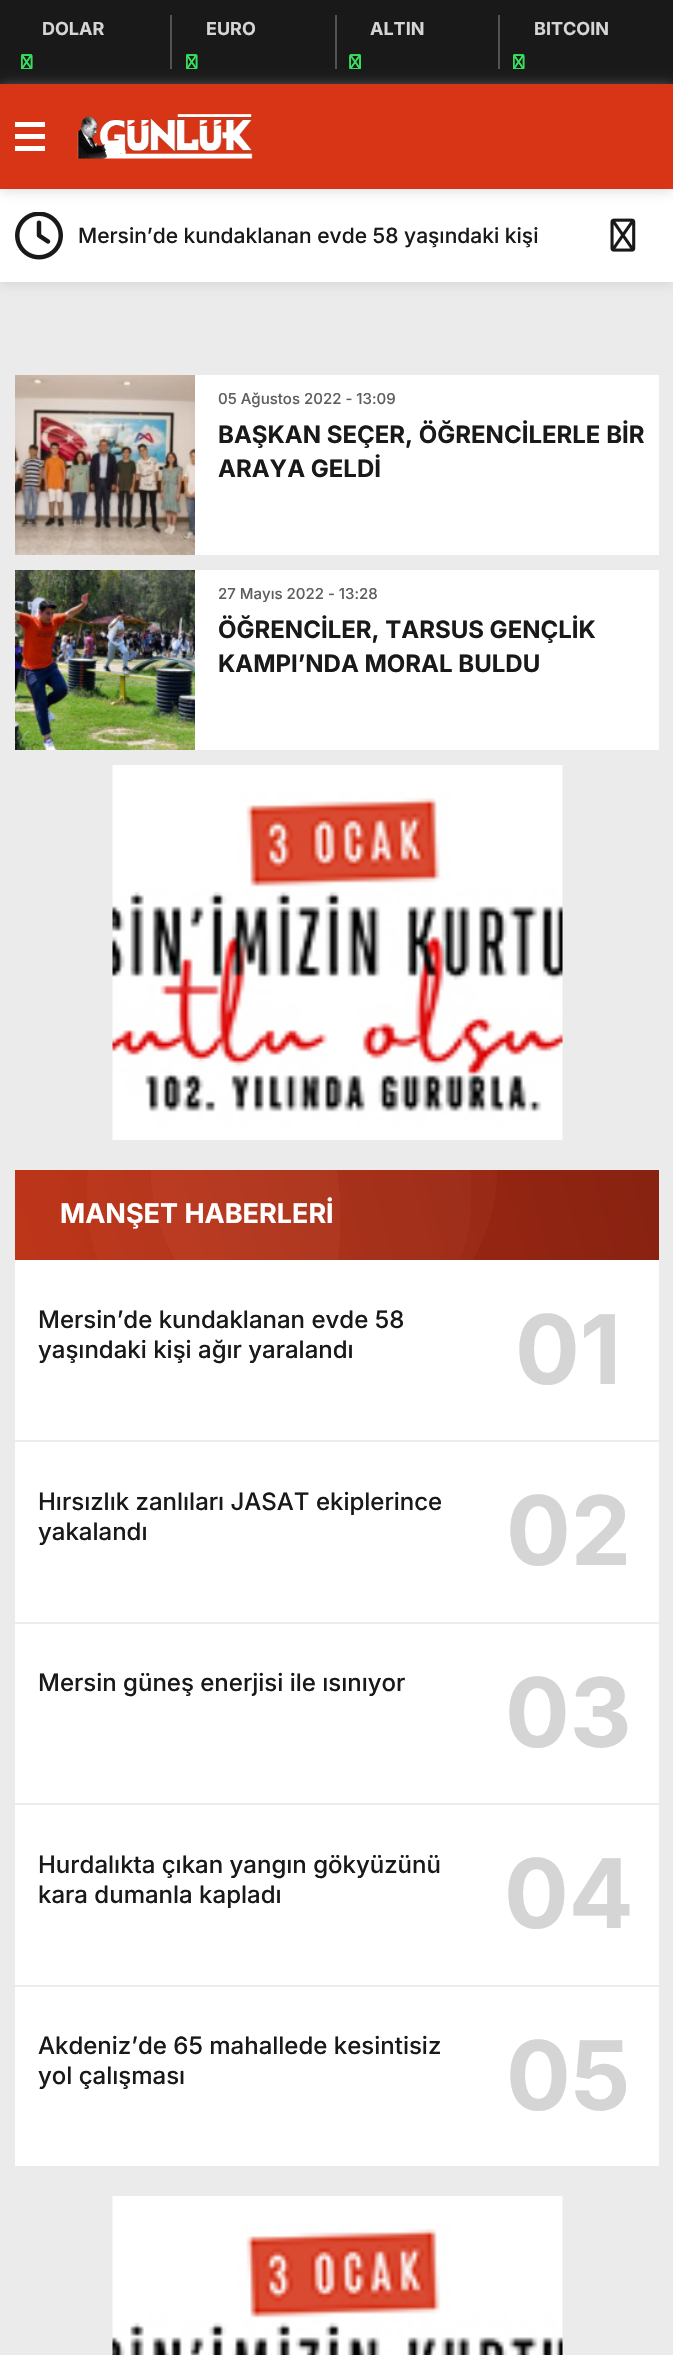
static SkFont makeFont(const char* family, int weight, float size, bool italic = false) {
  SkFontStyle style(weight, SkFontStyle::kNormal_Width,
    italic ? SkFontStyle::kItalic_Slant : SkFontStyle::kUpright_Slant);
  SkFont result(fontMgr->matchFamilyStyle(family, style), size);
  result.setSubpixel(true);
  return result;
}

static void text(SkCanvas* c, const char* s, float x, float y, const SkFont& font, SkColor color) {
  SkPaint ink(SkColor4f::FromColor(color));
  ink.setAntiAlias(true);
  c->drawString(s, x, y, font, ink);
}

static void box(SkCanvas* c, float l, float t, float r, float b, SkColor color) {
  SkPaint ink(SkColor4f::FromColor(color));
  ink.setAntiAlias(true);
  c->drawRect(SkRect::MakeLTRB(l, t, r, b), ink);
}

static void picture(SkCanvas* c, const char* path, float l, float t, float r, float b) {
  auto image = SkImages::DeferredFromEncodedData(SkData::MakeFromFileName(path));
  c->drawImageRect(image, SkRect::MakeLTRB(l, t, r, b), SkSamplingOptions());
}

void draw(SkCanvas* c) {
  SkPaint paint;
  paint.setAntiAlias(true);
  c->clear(0xffebebeb);
  box(c, 0, 0, 673, 84, 0xff191919);
  box(c, 170, 15, 172, 69, 0xff535353);
  SkFont face1 = makeFont("Inter", 700, 18);
  text(c, "DOLAR", 42, 35, face1, 0xffd5d5d5);
  picture(c, "img_01.png", 21, 54, 33, 69);
  picture(c, "img_02.png", 21, 54, 33, 69);
  picture(c, "img_03.png", 21, 54, 33, 69);
  box(c, 335, 15, 337, 69, 0xff535353);
  text(c, "EURO", 206, 35, face1, 0xffd5d5d5);
  picture(c, "img_01.png", 186, 54, 198, 69);
  picture(c, "img_02.png", 186, 54, 198, 69);
  picture(c, "img_03.png", 186, 54, 198, 69);
  box(c, 498, 15, 500, 69, 0xff535353);
  text(c, "ALTIN", 370, 35, face1, 0xffd5d5d5);
  picture(c, "img_04.png", 349, 54, 361, 69);
  picture(c, "img_05.png", 349, 54, 361, 69);
  picture(c, "img_06.png", 349, 54, 361, 69);
  text(c, "BITCOIN", 534, 35, face1, 0xffd5d5d5);
  picture(c, "img_01.png", 513, 54, 525, 69);
  picture(c, "img_02.png", 513, 54, 525, 69);
  picture(c, "img_03.png", 513, 54, 525, 69);
  paint.setColor(0x80bababa);
  paint.setMaskFilter(SkMaskFilter::MakeBlur(kNormal_SkBlurStyle, 6));
  c->drawRect(SkRect::MakeLTRB(0, 191, 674, 284), paint);
  paint.setMaskFilter(nullptr);
  box(c, 0, 189, 673, 282, 0xffffffff);
  paint.setMaskFilter(SkMaskFilter::MakeBlur(kNormal_SkBlurStyle, 6));
  c->drawRect(SkRect::MakeLTRB(0, 86, 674, 191), paint);
  paint.setMaskFilter(nullptr);
  box(c, 0, 84, 673, 189, 0xffd73516);
  box(c, 15, 134, 45, 139, 0xffffffff);
  box(c, 15, 122, 45, 127, 0xffffffff);
  box(c, 15, 146, 45, 151, 0xffffffff);
  picture(c, "img_07.png", 77, 114, 253, 159);
  picture(c, "img_08.png", 15, 212, 63, 260);
  SkFont face2 = makeFont("Inter", 500, 21);
  text(c, "Mersin’de kundaklanan evde 58 yaşındaki kişi", 78, 243, face2, 0xff191919);
  picture(c, "img_09.png", 610, 218, 636, 252);
  box(c, 195, 375, 659, 555, 0xffffffff);
  picture(c, "img_10.png", 15, 375, 195, 555);
  SkFont face3 = makeFont("Inter", 500, 15);
  text(c, "05 Ağustos 2022 - 13:09", 218, 404, face3, 0xff5e5e5e);
  SkFont face4 = makeFont("Inter", 700, 24);
  text(c, "BAŞKAN SEÇER, ÖĞRENCİLERLE BİR", 218, 443, face4, 0xff191919);
  text(c, "ARAYA GELDİ", 218, 477, face4, 0xff191919);
  box(c, 195, 570, 659, 750, 0xffffffff);
  picture(c, "img_11.png", 15, 570, 195, 750);
  text(c, "27 Mayıs 2022 - 13:28", 218, 599, face3, 0xff5e5e5e);
  text(c, "ÖĞRENCİLER, TARSUS GENÇLİK", 218, 638, face4, 0xff191919);
  text(c, "KAMPI’NDA MORAL BULDU", 218, 672, face4, 0xff191919);
  picture(c, "img_12.png", 112, 765, 563, 1140);
  box(c, 15, 1260, 659, 2166, 0xffffffff);
  {
    const SkColor colors[] = {0xff9d2610, 0xffd73516};
    const float stops[] = {0, 1};
    const SkPoint ends[] = {{648, 1132}, {25, 1298}};
    paint.setShader(SkGradientShader::MakeLinear(ends, colors, stops, 2, SkTileMode::kClamp));
    paint.setAlpha(255);
  }
  c->drawRect(SkRect::MakeLTRB(15, 1170, 659, 1260), paint);
  {
    const SkColor colors[] = {0x0d5d5d5d, 0x0d5d5d5d, 0x0d070707, 0x0d070707};
    const float stops[] = {0, 0.5f, 0.5f, 1};
    paint.setShader(SkGradientShader::MakeRadial({324, 1171}, 346, colors, stops, 4, SkTileMode::kClamp));
    paint.setAlpha(255);
  }
  c->drawRect(SkRect::MakeLTRB(15, 1170, 659, 1260), paint);
  {
    const SkColor colors[] = {0x0d515151, 0x0d515151, 0x0d070707, 0x0d070707};
    const float stops[] = {0, 0.5f, 0.5f, 1};
    paint.setShader(SkGradientShader::MakeRadial({279, 1195}, 385, colors, stops, 4, SkTileMode::kClamp));
    paint.setAlpha(255);
  }
  c->drawRect(SkRect::MakeLTRB(15, 1170, 659, 1260), paint);
  {
    const SkColor colors[] = {0x0d8b8b8b, 0x0d8b8b8b, 0x0d151515, 0x0d151515};
    const float stops[] = {0, 0.5f, 0.5f, 1};
    paint.setShader(SkGradientShader::MakeRadial({21, 1217}, 639, colors, stops, 4, SkTileMode::kClamp));
    paint.setAlpha(255);
  }
  c->drawRect(SkRect::MakeLTRB(15, 1170, 659, 1260), paint);
  SkFont face5 = makeFont("Inter", 700, 27);
  text(c, "MANŞET HABERLERİ", 60, 1223, face5, 0xffffffff);
  box(c, 15, 1440, 659, 1442, 0xffededed);
  SkFont face6 = makeFont("Inter", 500, 24);
  text(c, "Mersin’de kundaklanan evde 58", 38, 1328, face6, 0xff191919);
  text(c, "yaşındaki kişi ağır yaralandı", 38, 1358, face6, 0xff191919);
  SkFont face7 = makeFont("Inter", 700, 96);
  text(c, "01", 515, 1384, face7, 0xffd5d5d5);
  box(c, 15, 1622, 659, 1624, 0xffededed);
  text(c, "Hırsızlık zanlıları JASAT ekiplerince", 38, 1510, face6, 0xff191919);
  text(c, "yakalandı", 38, 1540, face6, 0xff191919);
  text(c, "02", 506, 1565, face7, 0xffd5d5d5);
  box(c, 15, 1803, 659, 1805, 0xffededed);
  text(c, "Mersin güneş enerjisi ile ısınıyor", 38, 1691, face6, 0xff191919);
  text(c, "03", 505, 1747, face7, 0xffd5d5d5);
  box(c, 15, 1985, 659, 1987, 0xffededed);
  text(c, "Hurdalıkta çıkan yangın gökyüzünü", 38, 1873, face6, 0xff191919);
  text(c, "kara dumanla kapladı", 38, 1903, face6, 0xff191919);
  text(c, "04", 504, 1928, face7, 0xffd5d5d5);
  text(c, "Akdeniz’de 65 mahallede kesintisiz", 38, 2054, face6, 0xff191919);
  text(c, "yol çalışması", 38, 2084, face6, 0xff191919);
  text(c, "05", 506, 2110, face7, 0xffd5d5d5);
  picture(c, "img_13.png", 112, 2196, 563, 2355);
}
